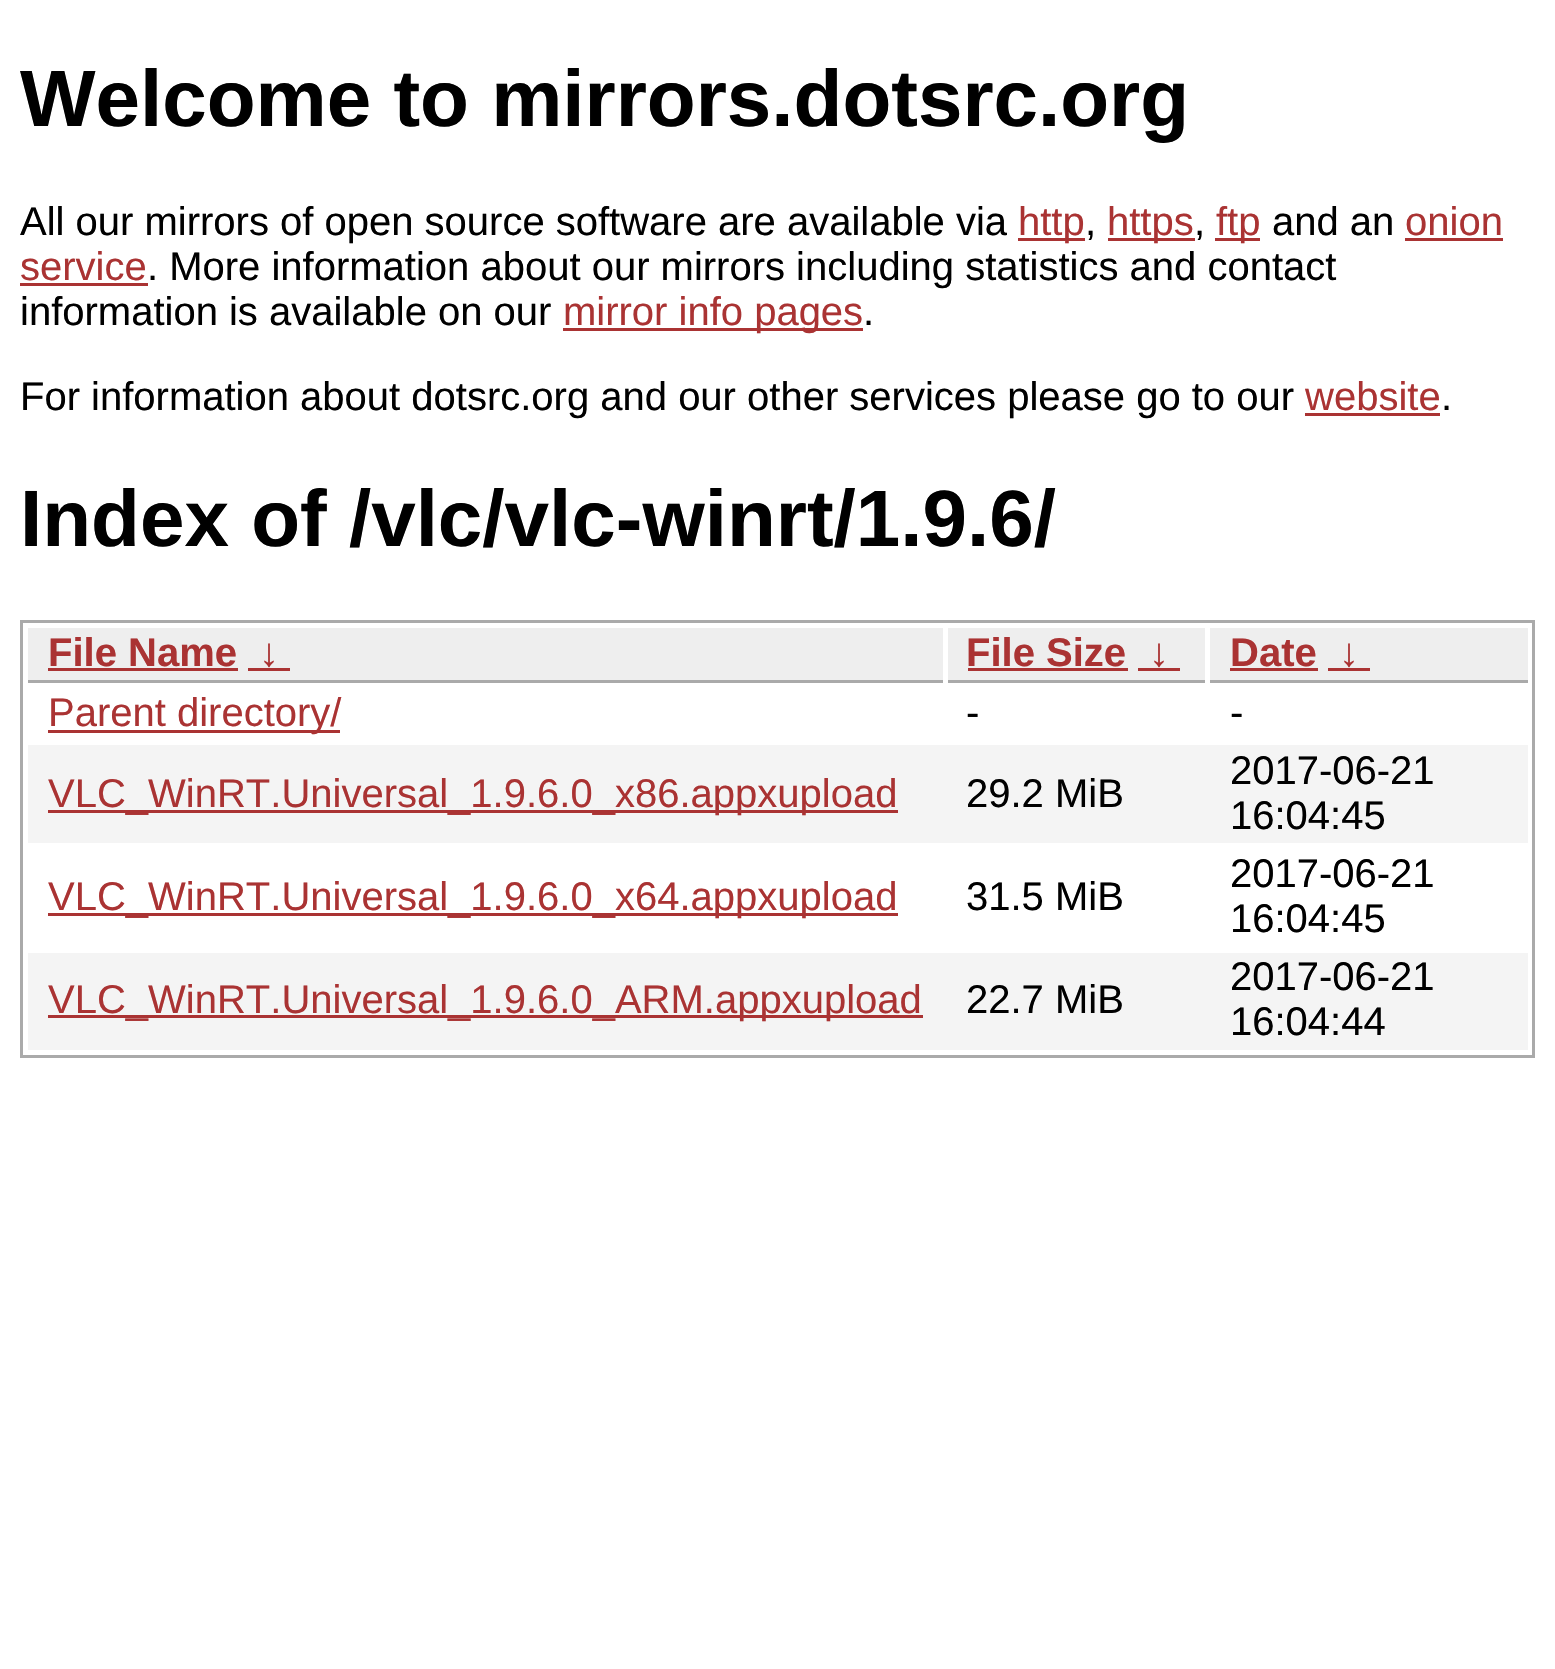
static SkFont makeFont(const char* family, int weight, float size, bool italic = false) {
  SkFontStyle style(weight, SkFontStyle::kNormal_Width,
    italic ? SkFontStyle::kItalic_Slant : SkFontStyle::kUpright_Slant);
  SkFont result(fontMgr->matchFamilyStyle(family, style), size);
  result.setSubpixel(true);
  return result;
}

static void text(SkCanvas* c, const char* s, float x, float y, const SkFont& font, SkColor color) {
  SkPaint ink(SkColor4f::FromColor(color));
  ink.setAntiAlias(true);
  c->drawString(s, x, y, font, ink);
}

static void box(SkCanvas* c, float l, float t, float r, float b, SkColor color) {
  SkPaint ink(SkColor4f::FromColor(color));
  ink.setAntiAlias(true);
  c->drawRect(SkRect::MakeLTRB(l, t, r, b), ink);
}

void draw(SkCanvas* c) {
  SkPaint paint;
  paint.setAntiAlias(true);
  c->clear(0xffffffff);
  SkFont face1 = makeFont("Liberation Sans", 700, 80);
  text(c, "Welcome to mirrors.dotsrc.org", 20, 126, face1, 0xff000000);
  SkFont face2 = makeFont("Liberation Sans", 400, 40);
  text(c, "All our mirrors of open source software are available via", 20, 235, face2, 0xff000000);
  box(c, 1018, 238, 1085, 241, 0xffaa3333);
  text(c, "http", 1018, 235, face2, 0xffaa3333);
  text(c, ",", 1085, 235, face2, 0xff000000);
  box(c, 1108, 238, 1195, 241, 0xffaa3333);
  text(c, "https", 1107, 235, face2, 0xffaa3333);
  text(c, ",", 1194, 235, face2, 0xff000000);
  box(c, 1215, 238, 1260, 241, 0xffaa3333);
  text(c, "ftp", 1216, 235, face2, 0xffaa3333);
  text(c, "and an", 1272, 235, face2, 0xff000000);
  text(c, "onion", 1405, 235, face2, 0xffaa3333);
  box(c, 1405, 238, 1503, 241, 0xffaa3333);
  text(c, "service", 20, 280, face2, 0xffaa3333);
  box(c, 20, 283, 148, 286, 0xffaa3333);
  text(c, ". More information about our mirrors including statistics and contact", 147, 280, face2, 0xff000000);
  text(c, "information is available on our", 20, 325, face2, 0xff000000);
  box(c, 563, 328, 863, 331, 0xffaa3333);
  text(c, "mirror info pages", 563, 325, face2, 0xffaa3333);
  text(c, ".", 863, 325, face2, 0xff000000);
  text(c, "For information about dotsrc.org and our other services please go to our", 20, 410, face2, 0xff000000);
  text(c, "website", 1305, 410, face2, 0xffaa3333);
  box(c, 1305, 413, 1440, 416, 0xffaa3333);
  text(c, ".", 1441, 410, face2, 0xff000000);
  text(c, "Index of /vlc/vlc-winrt/1.9.6/", 20, 546, face1, 0xff000000);
  paint.setStyle(SkPaint::kStroke_Style);
  paint.setStrokeWidth(3);
  paint.setColor(0xffaaaaaa);
  c->drawRect(SkRect::MakeLTRB(21.5f, 621.5f, 1533.5f, 1056.5f), paint);
  box(c, 28, 628, 943, 680, 0xffeeeeee);
  box(c, 28, 680, 943, 683, 0xffaaaaaa);
  SkFont face3 = makeFont("Liberation Sans", 700, 40);
  text(c, "File Name", 48, 666, face3, 0xffaa3333);
  box(c, 48, 668, 238, 671, 0xffaa3333);
  text(c, "↓", 259, 666, face3, 0xffaa3333);
  box(c, 248, 668, 290, 671, 0xffaa3333);
  box(c, 948, 628, 1205, 680, 0xffeeeeee);
  box(c, 948, 680, 1205, 683, 0xffaaaaaa);
  text(c, "File Size", 966, 666, face3, 0xffaa3333);
  box(c, 968, 668, 1128, 671, 0xffaa3333);
  text(c, "↓", 1149, 666, face3, 0xffaa3333);
  box(c, 1138, 668, 1180, 671, 0xffaa3333);
  box(c, 1210, 628, 1528, 680, 0xffeeeeee);
  box(c, 1210, 680, 1528, 683, 0xffaaaaaa);
  text(c, "Date", 1230, 666, face3, 0xffaa3333);
  box(c, 1230, 668, 1318, 671, 0xffaa3333);
  text(c, "↓", 1339, 666, face3, 0xffaa3333);
  box(c, 1328, 668, 1370, 671, 0xffaa3333);
  box(c, 48, 730, 340, 733, 0xffaa3333);
  text(c, "Parent directory/", 48, 726, face2, 0xffaa3333);
  text(c, "-", 966, 726, face2, 0xff000000);
  text(c, "-", 1230, 726, face2, 0xff000000);
  box(c, 28, 745, 1528, 843, 0xfff4f4f4);
  box(c, 48, 810, 898, 813, 0xffaa3333);
  text(c, "VLC_WinRT.Universal_1.9.6.0_x86.appxupload", 48, 807, face2, 0xffaa3333);
  text(c, "29.2 MiB", 966, 807, face2, 0xff000000);
  text(c, "2017-06-21", 1230, 784, face2, 0xff000000);
  text(c, "16:04:45", 1230, 829, face2, 0xff000000);
  box(c, 48, 913, 898, 916, 0xffaa3333);
  text(c, "VLC_WinRT.Universal_1.9.6.0_x64.appxupload", 48, 910, face2, 0xffaa3333);
  text(c, "31.5 MiB", 966, 910, face2, 0xff000000);
  text(c, "2017-06-21", 1230, 887, face2, 0xff000000);
  text(c, "16:04:45", 1230, 932, face2, 0xff000000);
  box(c, 28, 953, 1528, 1050, 0xfff4f4f4);
  box(c, 48, 1015, 923, 1018, 0xffaa3333);
  text(c, "VLC_WinRT.Universal_1.9.6.0_ARM.appxupload", 48, 1013, face2, 0xffaa3333);
  text(c, "22.7 MiB", 966, 1013, face2, 0xff000000);
  text(c, "2017-06-21", 1230, 990, face2, 0xff000000);
  text(c, "16:04:44", 1230, 1035, face2, 0xff000000);
}
